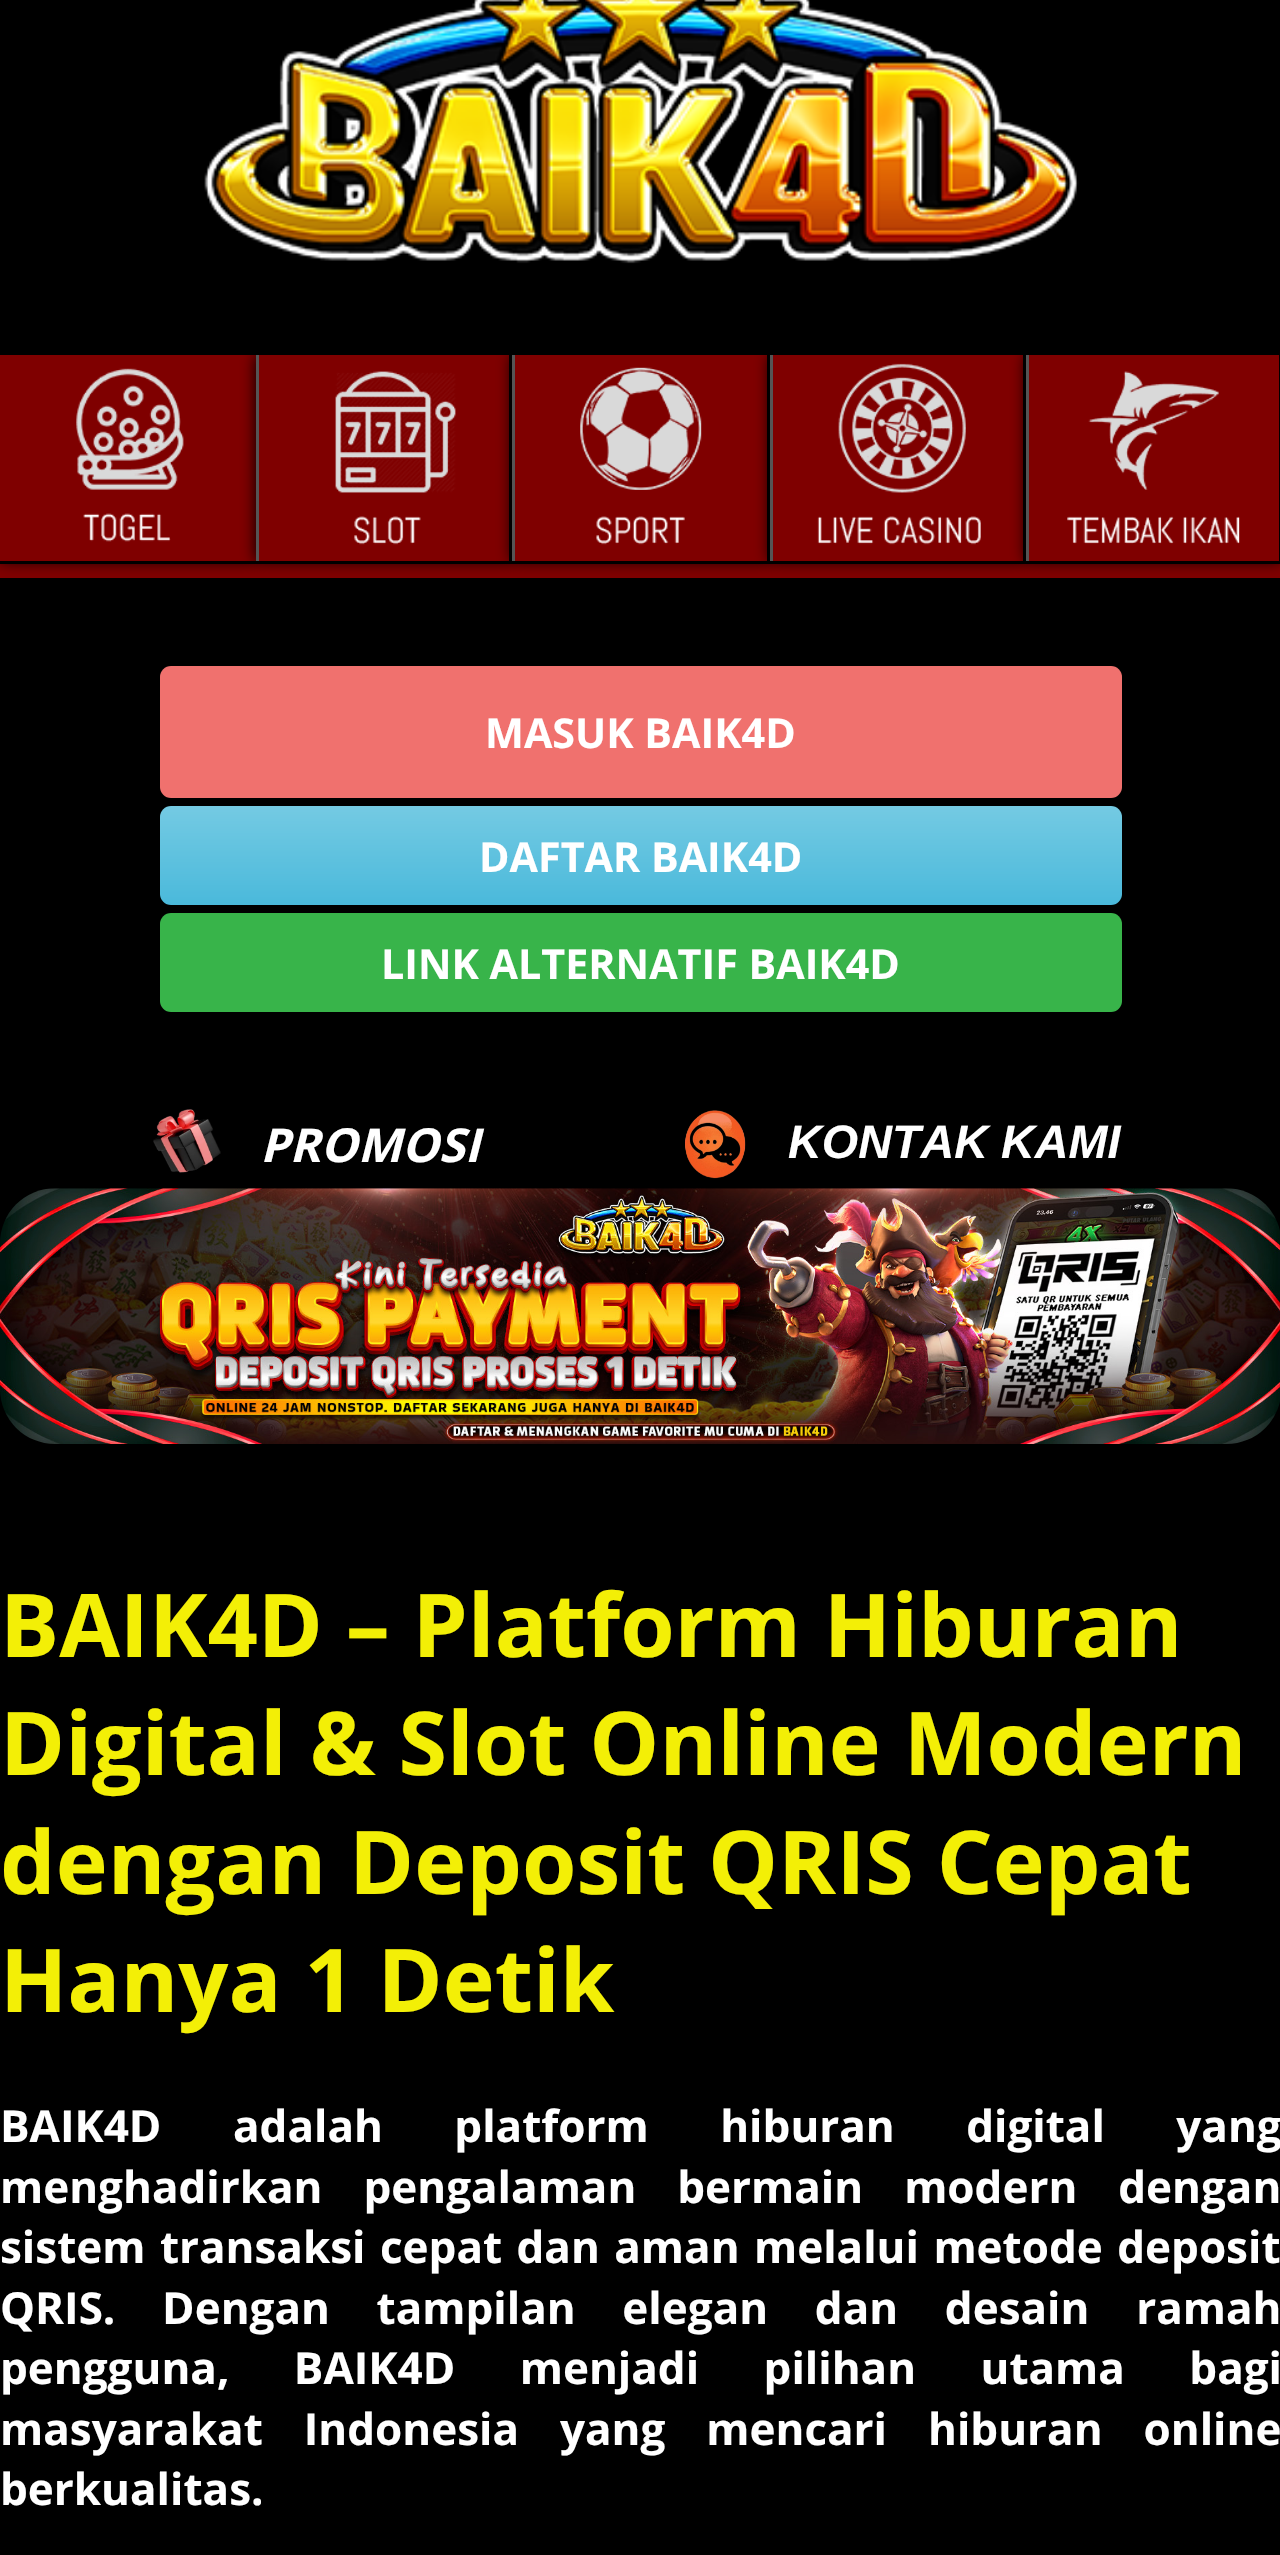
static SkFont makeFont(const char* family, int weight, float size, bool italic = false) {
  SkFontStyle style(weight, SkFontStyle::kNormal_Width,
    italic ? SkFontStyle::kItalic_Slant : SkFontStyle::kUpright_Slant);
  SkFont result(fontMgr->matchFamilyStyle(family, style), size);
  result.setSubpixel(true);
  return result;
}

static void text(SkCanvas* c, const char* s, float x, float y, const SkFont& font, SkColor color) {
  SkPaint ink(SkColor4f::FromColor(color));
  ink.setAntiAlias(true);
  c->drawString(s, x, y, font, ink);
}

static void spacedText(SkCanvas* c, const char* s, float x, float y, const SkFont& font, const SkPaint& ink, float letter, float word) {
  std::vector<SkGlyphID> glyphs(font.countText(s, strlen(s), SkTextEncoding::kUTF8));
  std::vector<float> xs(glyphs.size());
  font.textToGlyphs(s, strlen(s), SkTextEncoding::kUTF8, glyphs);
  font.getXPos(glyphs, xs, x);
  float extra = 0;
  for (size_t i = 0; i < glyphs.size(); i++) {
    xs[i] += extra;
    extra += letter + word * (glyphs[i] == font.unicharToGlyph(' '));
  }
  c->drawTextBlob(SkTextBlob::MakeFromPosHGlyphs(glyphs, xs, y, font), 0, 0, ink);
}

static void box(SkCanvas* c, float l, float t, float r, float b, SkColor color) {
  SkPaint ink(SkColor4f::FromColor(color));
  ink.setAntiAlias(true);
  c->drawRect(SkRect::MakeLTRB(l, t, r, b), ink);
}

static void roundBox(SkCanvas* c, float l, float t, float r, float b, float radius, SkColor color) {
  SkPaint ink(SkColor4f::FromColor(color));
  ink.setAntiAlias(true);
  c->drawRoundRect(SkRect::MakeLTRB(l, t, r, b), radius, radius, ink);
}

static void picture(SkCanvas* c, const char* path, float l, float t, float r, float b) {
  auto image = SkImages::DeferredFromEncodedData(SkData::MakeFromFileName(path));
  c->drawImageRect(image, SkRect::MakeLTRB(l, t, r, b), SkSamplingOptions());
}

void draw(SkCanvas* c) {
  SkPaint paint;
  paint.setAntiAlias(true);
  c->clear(0xff000000);
  picture(c, "img_01.png", 204, 0, 1079, 264);
  box(c, 0, 564, 1280, 578, 0xff7f0000);
  paint.setColor(0xff000000);
  paint.setMaskFilter(SkMaskFilter::MakeBlur(kNormal_SkBlurStyle, 7));
  c->drawRect(SkRect::MakeLTRB(0, 355, 256, 561), paint);
  paint.setMaskFilter(nullptr);
  box(c, 0, 355, 256, 561, 0xff7f0000);
  picture(c, "img_02.png", 76, 368, 184, 542);
  paint.setMaskFilter(SkMaskFilter::MakeBlur(kNormal_SkBlurStyle, 7));
  c->drawRect(SkRect::MakeLTRB(256, 355, 512, 561), paint);
  paint.setMaskFilter(nullptr);
  box(c, 259, 355, 509, 561, 0xff7f0000);
  box(c, 256, 355, 259, 561, 0xff555555);
  picture(c, "img_03.png", 335, 371, 456, 545);
  paint.setMaskFilter(SkMaskFilter::MakeBlur(kNormal_SkBlurStyle, 7));
  c->drawRect(SkRect::MakeLTRB(512, 355, 770, 561), paint);
  paint.setMaskFilter(nullptr);
  box(c, 515, 355, 767, 561, 0xff7f0000);
  box(c, 512, 355, 515, 561, 0xff555555);
  picture(c, "img_04.png", 580, 367, 702, 545);
  paint.setMaskFilter(SkMaskFilter::MakeBlur(kNormal_SkBlurStyle, 7));
  c->drawRect(SkRect::MakeLTRB(770, 355, 1026, 561), paint);
  paint.setMaskFilter(nullptr);
  box(c, 773, 355, 1023, 561, 0xff7f0000);
  box(c, 770, 355, 773, 561, 0xff555555);
  picture(c, "img_05.png", 817, 363, 981, 545);
  paint.setMaskFilter(SkMaskFilter::MakeBlur(kNormal_SkBlurStyle, 7));
  c->drawRect(SkRect::MakeLTRB(1026, 355, 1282, 561), paint);
  paint.setMaskFilter(nullptr);
  box(c, 1029, 355, 1279, 561, 0xff7f0000);
  box(c, 1026, 355, 1029, 561, 0xff555555);
  picture(c, "img_06.png", 1067, 371, 1240, 544);
  roundBox(c, 160, 666, 1122, 798, 11, 0xfff0716e);
  SkFont face1 = makeFont("Open Sans", 700, 41.25f);
  text(c, "MASUK BAIK4D", 485, 748, face1, 0xffffffff);
  {
    const SkColor colors[] = {0xff74cae3, 0xff5bc0de, 0xff4ab9db};
    const float stops[] = {0, 0.6f, 1};
    const SkPoint ends[] = {{641, 806}, {641, 905}};
    paint.setShader(SkGradientShader::MakeLinear(ends, colors, stops, 3, SkTileMode::kClamp));
    paint.setAlpha(255);
  }
  c->drawRoundRect(SkRect::MakeLTRB(160, 806, 1122, 905), 11, 11, paint);
  text(c, "DAFTAR BAIK4D", 479, 872, face1, 0xffffffff);
  roundBox(c, 160, 913, 1122, 1012, 11, 0xff38b44a);
  text(c, "LINK ALTERNATIF BAIK4D", 381, 979, face1, 0xffffffff);
  picture(c, "img_07.png", 153, 1109, 221, 1173);
  SkFont face2 = makeFont("Open Sans", 700, 46.75f, true);
  text(c, "PROMOSI", 260, 1162, face2, 0xffffffff);
  picture(c, "img_08.png", 685, 1110, 746, 1179);
  SkFont face3 = makeFont("Liberation Sans", 700, 46.75f, true);
  text(c, "KONTAK KAMI", 788, 1158, face3, 0xffffffff);
  picture(c, "img_09.png", 0, 1188, 1280, 1444);
  SkFont face4 = makeFont("Open Sans", 700, 88);
  text(c, "BAIK4D – Platform Hiburan", 0, 1657, face4, 0xfff3ef06);
  text(c, "Digital & Slot Online Modern", 0, 1775, face4, 0xfff3ef06);
  text(c, "dengan Deposit QRIS Cepat", 0, 1894, face4, 0xfff3ef06);
  text(c, "Hanya 1 Detik", 0, 2012, face4, 0xfff3ef06);
  SkFont face5 = makeFont("Open Sans", 700, 44);
  text(c, "BAIK4D", 0, 2142, face5, 0xffffffff);
  paint.setShader(nullptr);
  paint.setColor(0xffffffff);
  spacedText(c, "adalah platform hiburan digital yang", 233, 2142, face5, paint, 0, 60);
  spacedText(c, "menghadirkan pengalaman bermain modern dengan", 0, 2203, face5, paint, 0, 29.5f);
  spacedText(c, "sistem transaksi cepat dan aman melalui metode deposit", 0, 2263, face5, paint, 0, 3);
  spacedText(c, "QRIS. Dengan tampilan elegan dan desain ramah", 0, 2324, face5, paint, 0, 35.25f);
  spacedText(c, "pengguna, BAIK4D menjadi pilihan utama bagi", 0, 2384, face5, paint, 0, 53);
  spacedText(c, "masyarakat Indonesia yang mencari hiburan online", 0, 2445, face5, paint, 0, 29.5f);
  text(c, "berkualitas.", 0, 2505, face5, 0xffffffff);
}
